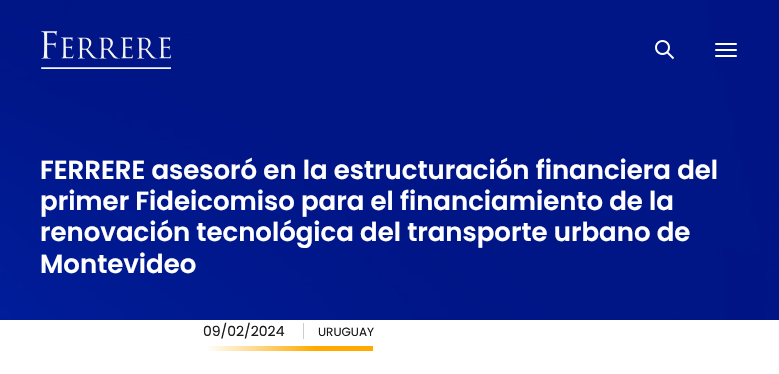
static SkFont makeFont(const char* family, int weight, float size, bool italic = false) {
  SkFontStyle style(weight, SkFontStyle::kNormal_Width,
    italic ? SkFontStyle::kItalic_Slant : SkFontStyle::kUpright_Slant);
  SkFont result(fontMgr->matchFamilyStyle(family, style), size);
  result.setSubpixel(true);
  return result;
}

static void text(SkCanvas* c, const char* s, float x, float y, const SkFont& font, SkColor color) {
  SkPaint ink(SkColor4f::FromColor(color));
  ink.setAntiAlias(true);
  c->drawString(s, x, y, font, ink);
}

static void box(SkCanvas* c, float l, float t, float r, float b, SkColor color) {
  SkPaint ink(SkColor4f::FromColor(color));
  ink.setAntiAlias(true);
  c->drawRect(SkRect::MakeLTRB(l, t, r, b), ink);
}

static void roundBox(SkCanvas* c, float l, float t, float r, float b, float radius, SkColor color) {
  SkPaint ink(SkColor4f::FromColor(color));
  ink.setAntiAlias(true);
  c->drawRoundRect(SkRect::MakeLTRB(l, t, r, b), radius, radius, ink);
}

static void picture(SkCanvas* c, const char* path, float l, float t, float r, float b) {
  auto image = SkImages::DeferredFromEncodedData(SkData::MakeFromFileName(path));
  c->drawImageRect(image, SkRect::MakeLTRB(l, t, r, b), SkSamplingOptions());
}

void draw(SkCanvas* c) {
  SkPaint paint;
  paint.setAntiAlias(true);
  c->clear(0xffffffff);
  picture(c, "img_03.png", 0, 0, 779, 320);
  picture(c, "img_01.png", 41, 31, 171, 69);
  picture(c, "img_02.png", 655, 40, 675, 60);
  roundBox(c, 715, 43, 737, 45, 1, 0xffffffff);
  roundBox(c, 715, 49, 737, 51, 1, 0xffffffff);
  roundBox(c, 715, 55, 737, 57, 1, 0xffffffff);
  SkFont face1 = makeFont("Poppins", 600, 26);
  text(c, "FERRERE asesoró en la estructuración financiera del", 40, 179, face1, 0xffffffff);
  text(c, "primer Fideicomiso para el financiamiento de la", 40, 210, face1, 0xffffffff);
  text(c, "renovación tecnológica del transporte urbano de", 40, 241, face1, 0xffffffff);
  text(c, "Montevideo", 40, 273, face1, 0xffffffff);
  SkFont face2 = makeFont("Poppins", 400, 14);
  text(c, "09/02/2024", 203, 336, face2, 0xff1a1a1a);
  box(c, 303, 323, 304, 339, 0xffcccccc);
  SkFont face3 = makeFont("Poppins", 400, 12);
  text(c, "URUGUAY", 318, 336, face3, 0xff1a1a1a);
  {
    const SkColor colors[] = {0xffffaa00, 0xffffffff};
    const float stops[] = {0.35f, 1};
    const SkPoint ends[] = {{373, 349}, {206, 349}};
    paint.setShader(SkGradientShader::MakeLinear(ends, colors, stops, 2, SkTileMode::kClamp));
    paint.setAlpha(255);
  }
  c->drawRect(SkRect::MakeLTRB(206, 346, 373, 351), paint);
}
